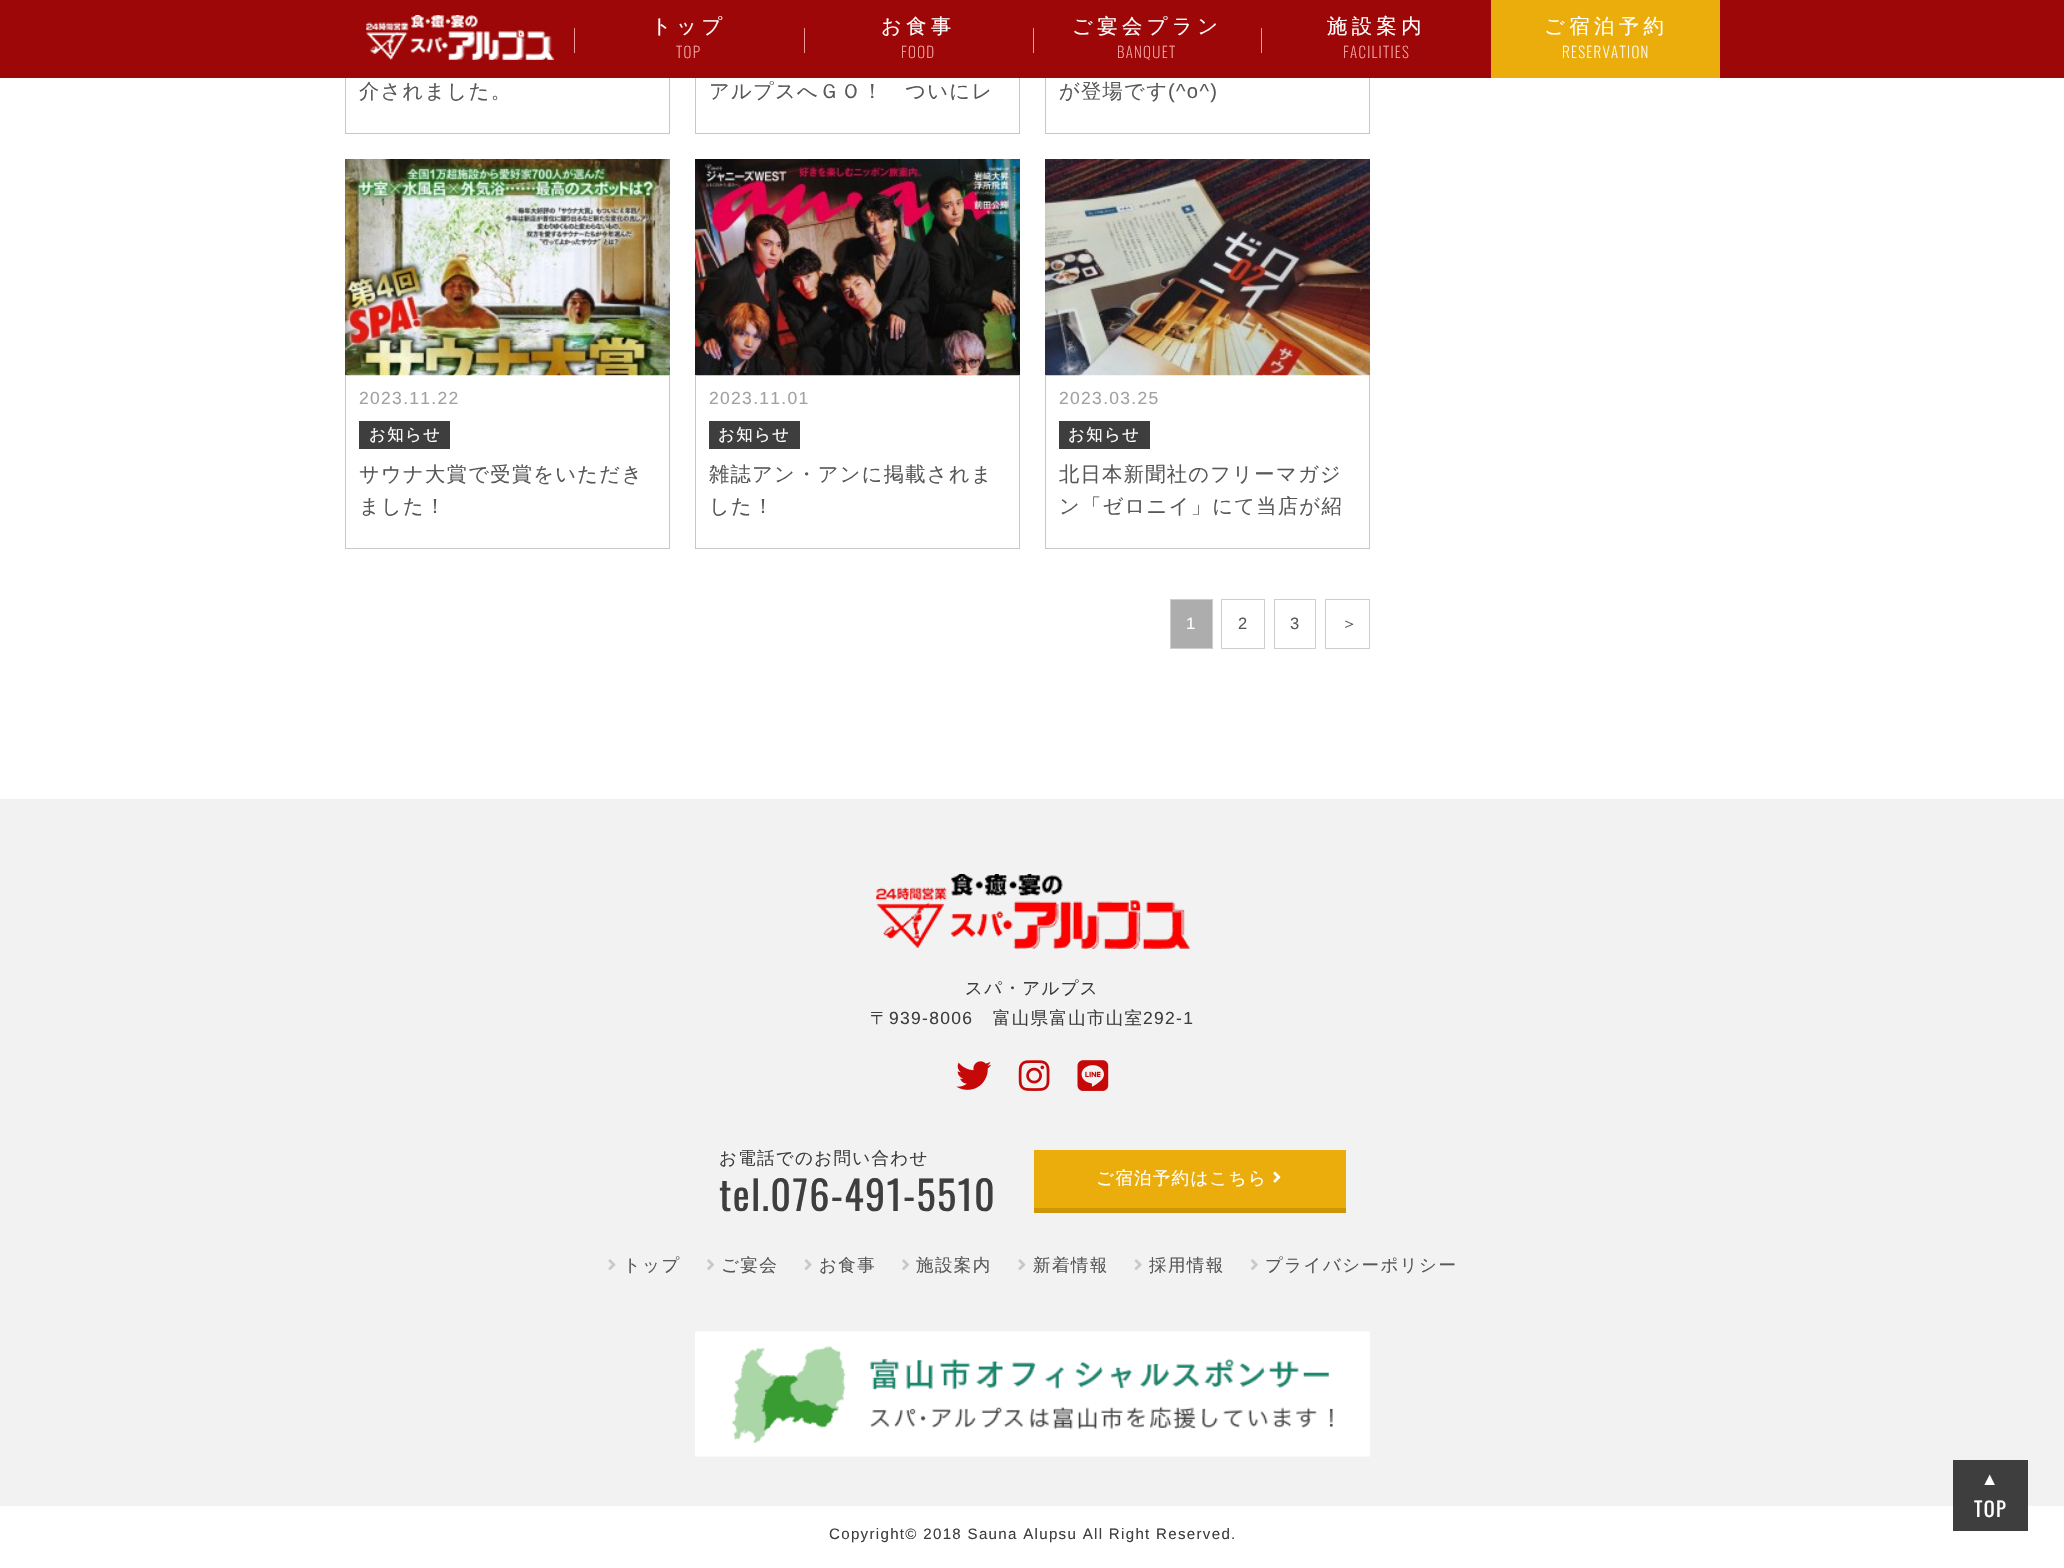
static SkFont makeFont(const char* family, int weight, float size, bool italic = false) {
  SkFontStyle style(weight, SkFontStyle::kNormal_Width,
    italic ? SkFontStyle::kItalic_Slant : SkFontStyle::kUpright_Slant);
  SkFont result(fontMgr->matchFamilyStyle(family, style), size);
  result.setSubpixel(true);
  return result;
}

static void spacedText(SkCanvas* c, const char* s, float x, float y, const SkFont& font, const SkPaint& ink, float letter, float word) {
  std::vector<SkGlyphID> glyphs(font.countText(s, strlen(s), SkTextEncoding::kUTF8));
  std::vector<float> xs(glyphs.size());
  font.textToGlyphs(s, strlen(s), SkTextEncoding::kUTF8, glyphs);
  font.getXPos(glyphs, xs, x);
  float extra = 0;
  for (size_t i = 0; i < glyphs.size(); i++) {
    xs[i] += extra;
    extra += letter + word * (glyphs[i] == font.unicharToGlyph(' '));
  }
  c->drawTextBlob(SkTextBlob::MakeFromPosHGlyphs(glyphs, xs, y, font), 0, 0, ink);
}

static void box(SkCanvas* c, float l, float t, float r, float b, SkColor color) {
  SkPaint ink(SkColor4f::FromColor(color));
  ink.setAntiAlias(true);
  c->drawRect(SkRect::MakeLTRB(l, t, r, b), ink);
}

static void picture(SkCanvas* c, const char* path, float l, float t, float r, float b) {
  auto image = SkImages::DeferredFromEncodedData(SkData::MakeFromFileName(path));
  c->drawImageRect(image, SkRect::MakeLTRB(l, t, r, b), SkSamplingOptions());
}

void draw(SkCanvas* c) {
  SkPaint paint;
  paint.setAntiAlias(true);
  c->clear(0xffffffff);
  box(c, 0, 0, 2064, 78, 0xff9d0707);
  picture(c, "img_01.png", 366, 15, 554, 60);
  SkFont face1 = makeFont("WenQuanYi Zen Hei", 500, 20.25f);
  paint.setColor(0xffffffff);
  spacedText(c, "トップ", 651, 33, face1, paint, 4.5f, 0);
  box(c, 574, 28, 575, 53, 0xfff09898);
  SkFont face2 = makeFont("Oswald", 200, 15.1f);
  paint.setColor(0xffffb1b1);
  spacedText(c, "TOP", 676, 58, face2, paint, 1.3f, 0);
  box(c, 804, 28, 805, 53, 0xfff09898);
  paint.setColor(0xffffffff);
  spacedText(c, "お食事", 881, 33, face1, paint, 4.5f, 0);
  paint.setColor(0xffffb1b1);
  spacedText(c, "FOOD", 901, 58, face2, paint, 1.3f, 0);
  paint.setColor(0xffffffff);
  spacedText(c, "ご宴会プラン", 1072, 33, face1, paint, 4.5f, 0);
  box(c, 1033, 28, 1034, 53, 0xfff09898);
  paint.setColor(0xffffb1b1);
  spacedText(c, "BANQUET", 1117, 58, face2, paint, 1.3f, 0);
  paint.setColor(0xffffffff);
  spacedText(c, "施設案内", 1327, 33, face1, paint, 4.5f, 0);
  box(c, 1261, 28, 1262, 53, 0xfff09898);
  paint.setColor(0xffffb1b1);
  spacedText(c, "FACILITIES", 1343, 58, face2, paint, 1.3f, 0);
  box(c, 1491, 0, 1720, 78, 0xffeaad0c);
  paint.setColor(0xffffffff);
  spacedText(c, "ご宿泊予約", 1544, 33, face1, paint, 4.5f, 0);
  spacedText(c, "RESERVATION", 1562, 58, face2, paint, 1.3f, 0);
  box(c, 669, 78, 670, 134, 0xffc8c8c8);
  box(c, 345, 133, 670, 134, 0xffc8c8c8);
  box(c, 345, 78, 346, 134, 0xffc8c8c8);
  paint.setColor(0xff585858);
  spacedText(c, "介されました。", 359, 98, face1, paint, 1.3f, 0);
  box(c, 1019, 78, 1020, 134, 0xffc8c8c8);
  box(c, 695, 133, 1020, 134, 0xffc8c8c8);
  box(c, 695, 78, 696, 134, 0xffc8c8c8);
  spacedText(c, "アルプスへＧＯ！　ついにレ", 709, 98, face1, paint, 1.3f, 0);
  box(c, 1369, 78, 1370, 134, 0xffc8c8c8);
  box(c, 1045, 133, 1370, 134, 0xffc8c8c8);
  box(c, 1045, 78, 1046, 134, 0xffc8c8c8);
  spacedText(c, "が登場です", 1059, 98, face1, paint, 1.3f, 0);
  SkFont face3 = makeFont("Liberation Sans", 400, 20.25f);
  spacedText(c, "(^o^)", 1168, 98, face3, paint, 1.3f, 0);
  picture(c, "img_02.png", 345, 159, 670, 376);
  box(c, 669, 375, 670, 549, 0xffc8c8c8);
  box(c, 345, 548, 670, 549, 0xffc8c8c8);
  box(c, 345, 375, 346, 549, 0xffc8c8c8);
  SkFont face4 = makeFont("Liberation Sans", 400, 17.5f);
  paint.setColor(0xffa4a0a0);
  spacedText(c, "2023.11.22", 359, 404, face4, paint, 1.3f, 0);
  box(c, 359, 421, 450, 449, 0xff3e3e3e);
  SkFont face5 = makeFont("WenQuanYi Zen Hei", 500, 16.5f);
  paint.setColor(0xffffffff);
  spacedText(c, "お知らせ", 369, 440, face5, paint, 1.3f, 0);
  paint.setColor(0xff585858);
  spacedText(c, "サウナ大賞で受賞をいただき", 359, 481, face1, paint, 1.3f, 0);
  spacedText(c, "ました！", 359, 513, face1, paint, 1.3f, 0);
  picture(c, "img_03.png", 695, 159, 1020, 376);
  box(c, 1019, 375, 1020, 549, 0xffc8c8c8);
  box(c, 695, 548, 1020, 549, 0xffc8c8c8);
  box(c, 695, 375, 696, 549, 0xffc8c8c8);
  paint.setColor(0xffa4a0a0);
  spacedText(c, "2023.11.01", 709, 404, face4, paint, 1.3f, 0);
  box(c, 709, 421, 800, 449, 0xff3e3e3e);
  paint.setColor(0xffffffff);
  spacedText(c, "お知らせ", 718, 440, face5, paint, 1.3f, 0);
  paint.setColor(0xff585858);
  spacedText(c, "雑誌アン・アンに掲載されま", 709, 481, face1, paint, 1.3f, 0);
  spacedText(c, "した！", 709, 513, face1, paint, 1.3f, 0);
  picture(c, "img_04.png", 1045, 159, 1370, 376);
  box(c, 1369, 375, 1370, 549, 0xffc8c8c8);
  box(c, 1045, 548, 1370, 549, 0xffc8c8c8);
  box(c, 1045, 375, 1046, 549, 0xffc8c8c8);
  paint.setColor(0xffa4a0a0);
  spacedText(c, "2023.03.25", 1059, 404, face4, paint, 1.3f, 0);
  box(c, 1059, 421, 1150, 449, 0xff3e3e3e);
  paint.setColor(0xffffffff);
  spacedText(c, "お知らせ", 1068, 440, face5, paint, 1.3f, 0);
  paint.setColor(0xff585858);
  spacedText(c, "北日本新聞社のフリーマガジ", 1059, 481, face1, paint, 1.3f, 0);
  spacedText(c, "ン「ゼロニイ」にて当店が紹", 1059, 513, face1, paint, 1.3f, 0);
  paint.setColor(0xffadadad);
  c->drawRect(SkRect::MakeLTRB(1170.5f, 599.5f, 1212.5f, 648.5f), paint);
  paint.setStyle(SkPaint::kStroke_Style);
  paint.setStrokeWidth(1);
  paint.setColor(0xffcecece);
  c->drawRect(SkRect::MakeLTRB(1170.5f, 599.5f, 1212.5f, 648.5f), paint);
  SkFont face6 = makeFont("Liberation Sans", 400, 16.5f);
  paint.setStyle(SkPaint::kFill_Style);
  paint.setColor(0xffffffff);
  spacedText(c, "1", 1186, 629, face6, paint, 1.3f, 0);
  paint.setStyle(SkPaint::kStroke_Style);
  paint.setColor(0xffcecece);
  c->drawRect(SkRect::MakeLTRB(1221.5f, 599.5f, 1264.5f, 648.5f), paint);
  paint.setStyle(SkPaint::kFill_Style);
  paint.setColor(0xff585858);
  spacedText(c, "2", 1238, 629, face6, paint, 1.3f, 0);
  paint.setStyle(SkPaint::kStroke_Style);
  paint.setColor(0xffcecece);
  c->drawRect(SkRect::MakeLTRB(1274.5f, 599.5f, 1315.5f, 648.5f), paint);
  paint.setStyle(SkPaint::kFill_Style);
  paint.setColor(0xff585858);
  spacedText(c, "3", 1290, 629, face6, paint, 1.3f, 0);
  paint.setStyle(SkPaint::kStroke_Style);
  paint.setColor(0xffcecece);
  c->drawRect(SkRect::MakeLTRB(1325.5f, 599.5f, 1369.5f, 648.5f), paint);
  paint.setStyle(SkPaint::kFill_Style);
  paint.setColor(0xff585858);
  spacedText(c, "＞", 1341, 629, face5, paint, 1.3f, 0);
  box(c, 0, 799, 2064, 1506, 0xfff2f2f2);
  picture(c, "img_05.png", 876, 874, 1190, 949);
  SkFont face7 = makeFont("WenQuanYi Zen Hei", 500, 17.5f);
  paint.setColor(0xff3e3e3e);
  spacedText(c, "スパ・アルプス", 965, 994, face7, paint, 1.3f, 0);
  spacedText(c, "〒", 870, 1024, face7, paint, 1.3f, 0);
  spacedText(c, "939-8006", 889, 1024, face4, paint, 1.3f, 0);
  spacedText(c, "富山県富山市山室", 993, 1024, face7, paint, 1.3f, 0);
  spacedText(c, "292-1", 1143, 1024, face4, paint, 1.3f, 0);
  picture(c, "img_06.png", 956, 1061, 992, 1090);
  picture(c, "img_07.png", 1018, 1060, 1050, 1091);
  picture(c, "img_08.png", 1077, 1060, 1109, 1091);
  spacedText(c, "お電話でのお問い合わせ", 719, 1164, face7, paint, 1.3f, 0);
  SkFont face8 = makeFont("Oswald", 400, 40.25f);
  spacedText(c, "tel.076-491-5510", 719, 1211, face8, paint, 1.3f, 0);
  box(c, 1034, 1208, 1346, 1213, 0xffcc9606);
  box(c, 1034, 1150, 1346, 1208, 0xffeaad0c);
  paint.setColor(0xffffffff);
  spacedText(c, "ご宿泊予約はこちら", 1096, 1184, face7, paint, 1.3f, 0);
  picture(c, "img_09.png", 1273, 1171, 1281, 1183);
  picture(c, "img_10.png", 608, 1259, 616, 1270);
  paint.setColor(0xff585858);
  spacedText(c, "トップ", 623, 1271, face7, paint, 1.4f, 0);
  picture(c, "img_11.png", 707, 1259, 714, 1270);
  spacedText(c, "ご宴会", 721, 1271, face7, paint, 1.4f, 0);
  picture(c, "img_12.png", 804, 1259, 812, 1270);
  spacedText(c, "お食事", 819, 1271, face7, paint, 1.4f, 0);
  picture(c, "img_11.png", 902, 1259, 909, 1270);
  spacedText(c, "施設案内", 916, 1271, face7, paint, 1.4f, 0);
  picture(c, "img_10.png", 1018, 1259, 1026, 1270);
  spacedText(c, "新着情報", 1033, 1271, face7, paint, 1.4f, 0);
  picture(c, "img_12.png", 1134, 1259, 1142, 1270);
  spacedText(c, "採用情報", 1149, 1271, face7, paint, 1.4f, 0);
  picture(c, "img_13.png", 1251, 1259, 1258, 1270);
  spacedText(c, "プライバシーポリシー", 1265, 1271, face7, paint, 1.4f, 0);
  picture(c, "img_14.png", 695, 1331, 1370, 1457);
  box(c, 1953, 1460, 2028, 1531, 0xff3e3e3e);
  SkFont face9 = makeFont("Liberation Serif", 700, 17.5f);
  paint.setColor(0xffffffff);
  spacedText(c, "▲", 1981, 1485, face9, paint, 1.3f, 0);
  SkFont face10 = makeFont("Oswald", 400, 20.25f);
  spacedText(c, "TOP", 1974, 1517, face10, paint, 1.3f, 0);
  SkFont face11 = makeFont("Liberation Sans", 400, 15.1f);
  paint.setColor(0xff3e3e3e);
  spacedText(c, "Copyright© 2018 Sauna Alupsu All Right Reserved.", 829, 1539, face11, paint, 1.3f, 0);
}
